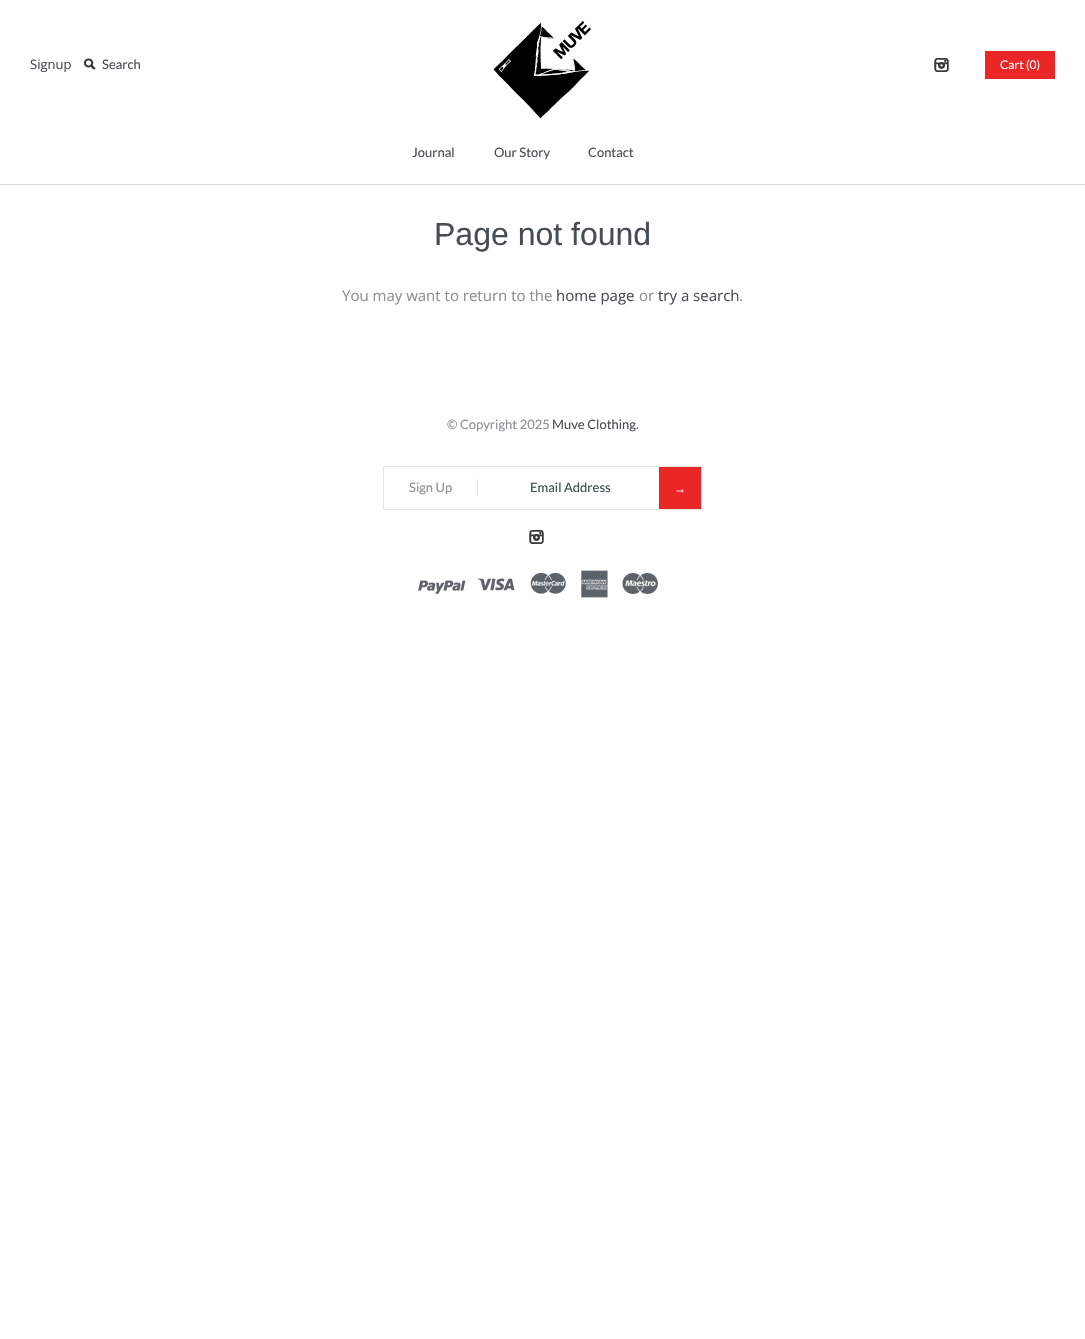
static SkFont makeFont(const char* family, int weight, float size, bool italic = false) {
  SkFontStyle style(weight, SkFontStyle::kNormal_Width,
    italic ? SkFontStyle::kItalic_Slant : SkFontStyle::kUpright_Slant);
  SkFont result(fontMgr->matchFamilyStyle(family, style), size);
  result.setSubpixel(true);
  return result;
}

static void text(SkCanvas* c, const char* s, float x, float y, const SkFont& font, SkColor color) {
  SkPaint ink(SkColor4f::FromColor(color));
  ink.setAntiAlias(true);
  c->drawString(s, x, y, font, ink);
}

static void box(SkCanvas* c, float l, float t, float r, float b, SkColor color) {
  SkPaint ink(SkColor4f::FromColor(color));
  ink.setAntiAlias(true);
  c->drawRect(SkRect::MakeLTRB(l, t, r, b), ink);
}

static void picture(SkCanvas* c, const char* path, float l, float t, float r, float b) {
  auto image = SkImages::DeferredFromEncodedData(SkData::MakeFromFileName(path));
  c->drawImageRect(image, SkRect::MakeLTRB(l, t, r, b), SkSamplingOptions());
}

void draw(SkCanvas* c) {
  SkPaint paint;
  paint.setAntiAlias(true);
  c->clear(0xffffffff);
  picture(c, "img_01.png", 493, 21, 591, 119);
  SkFont face1 = makeFont("Open Sans", 400, 13);
  text(c, "Signup", 30, 69, face1, 0xff464e54);
  picture(c, "img_02.png", 84, 58, 96, 70);
  SkFont face2 = makeFont("Lato", 400, 13);
  text(c, "Search", 102, 69, face2, 0xff464e54);
  picture(c, "img_03.png", 934, 58, 949, 72);
  box(c, 985, 51, 1055, 79, 0xffeb2626);
  SkFont face3 = makeFont("Lato", 400, 12);
  text(c, "Cart (0)", 1000, 69, face3, 0xfff7f7f7);
  box(c, 0, 184, 1085, 185, 0xffd9d9d4);
  text(c, "Journal", 412, 157, face2, 0xff464e54);
  text(c, "Our Story", 494, 157, face2, 0xff464e54);
  text(c, "Contact", 588, 157, face2, 0xff464e54);
  SkFont face4 = makeFont("Liberation Sans", 400, 32);
  text(c, "Page not found", 434, 245, face4, 0xff464e54);
  SkFont face5 = makeFont("Open Sans", 400, 15);
  text(c, "You may want to return to the", 342, 301, face5, 0xff8a8f93);
  text(c, "home page", 556, 301, face5, 0xff464e54);
  text(c, "or", 639, 301, face5, 0xff8a8f93);
  text(c, "try a search", 658, 301, face5, 0xff464e54);
  text(c, ".", 739, 301, face5, 0xff8a8f93);
  text(c, "© Copyright 2025", 447, 429, face2, 0xff8a8f93);
  text(c, "Muve Clothing.", 552, 429, face2, 0xff464e54);
  paint.setStyle(SkPaint::kStroke_Style);
  paint.setStrokeWidth(1);
  paint.setColor(0xffe7e7e1);
  c->drawRect(SkRect::MakeLTRB(383.5f, 466.5f, 701.5f, 509.5f), paint);
  text(c, "Sign Up", 409, 492, face2, 0xff8a8f93);
  box(c, 477, 479, 478, 495, 0xffe7e7e1);
  text(c, "Email Address", 530, 492, face2, 0xff3d4c4f);
  box(c, 659, 467, 701, 509, 0xffeb2626);
  SkFont face6 = makeFont("Liberation Serif", 400, 12);
  text(c, "→", 674, 493, face6, 0xfff7f7f7);
  picture(c, "img_03.png", 529, 530, 544, 544);
  picture(c, "img_04.png", 418, 580, 466, 594);
  picture(c, "img_05.png", 477, 578, 515, 591);
  picture(c, "img_06.png", 530, 572, 566, 594);
  picture(c, "img_07.png", 581, 570, 608, 598);
  picture(c, "img_08.png", 622, 572, 659, 595);
}
